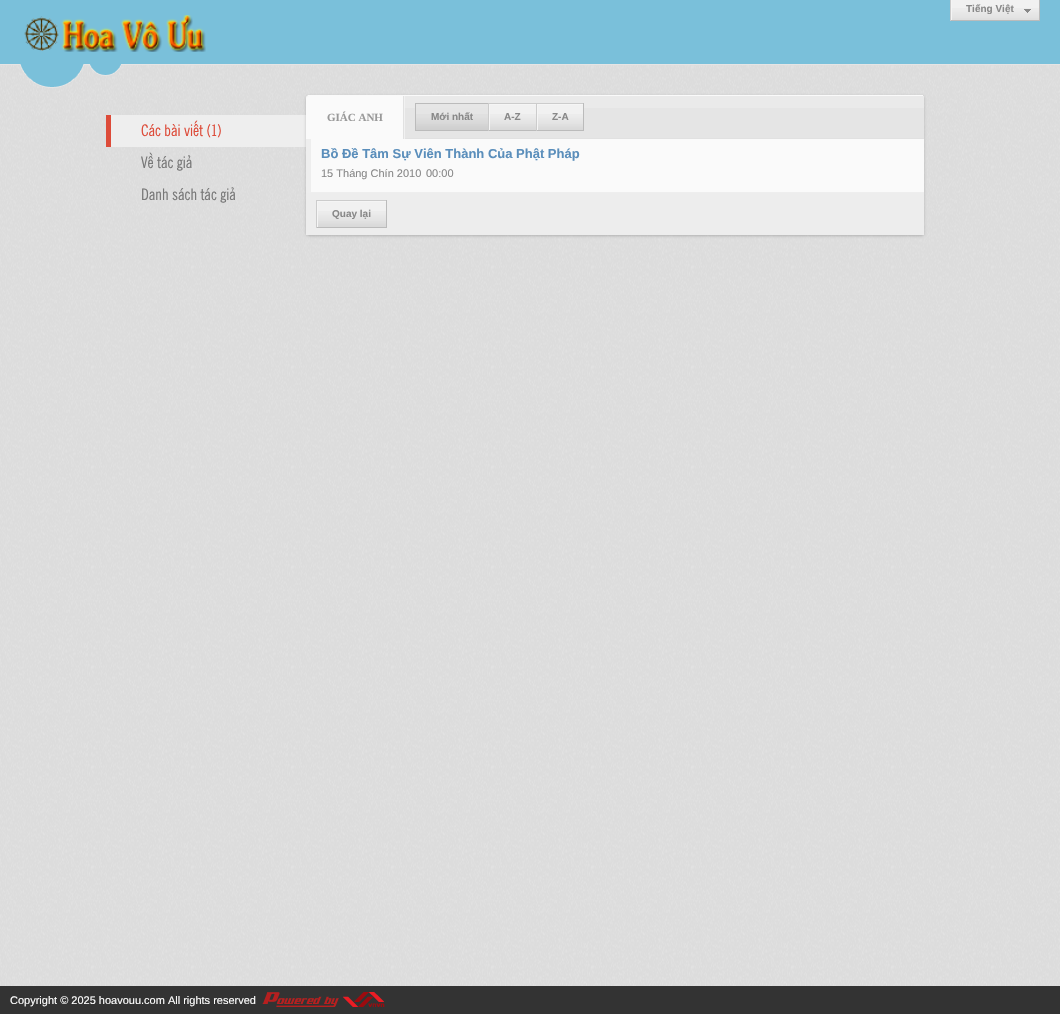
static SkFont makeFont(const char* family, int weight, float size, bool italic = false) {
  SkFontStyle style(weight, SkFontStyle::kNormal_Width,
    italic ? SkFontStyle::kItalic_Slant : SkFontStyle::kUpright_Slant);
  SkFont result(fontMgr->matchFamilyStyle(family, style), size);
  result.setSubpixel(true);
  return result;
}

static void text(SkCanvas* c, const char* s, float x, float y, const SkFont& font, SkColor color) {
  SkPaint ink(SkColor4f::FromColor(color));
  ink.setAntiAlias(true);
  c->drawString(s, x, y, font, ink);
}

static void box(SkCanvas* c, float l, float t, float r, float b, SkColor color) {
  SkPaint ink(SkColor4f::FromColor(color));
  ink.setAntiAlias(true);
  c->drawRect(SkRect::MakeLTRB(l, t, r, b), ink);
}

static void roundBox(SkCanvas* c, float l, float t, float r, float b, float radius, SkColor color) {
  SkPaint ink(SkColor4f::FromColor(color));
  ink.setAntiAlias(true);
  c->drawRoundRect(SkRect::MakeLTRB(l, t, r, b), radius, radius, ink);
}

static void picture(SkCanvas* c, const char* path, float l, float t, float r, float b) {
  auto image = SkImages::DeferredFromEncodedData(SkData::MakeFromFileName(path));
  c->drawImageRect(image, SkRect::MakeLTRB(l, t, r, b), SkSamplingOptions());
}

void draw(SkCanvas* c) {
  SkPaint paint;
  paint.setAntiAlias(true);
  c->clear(0xffffffff);
  picture(c, "img_01.png", 0, 65, 1060, 986);
  box(c, 0, 0, 1060, 64, 0xff7ac0da);
  box(c, 0, 64, 1060, 65, 0xffe5e5e5);
  box(c, 952, 0, 1039, 20, 0xfff1f1f1);
  picture(c, "img_02.png", 952, 8, 1039, 20);
  c->save();
  c->clipRect(SkRect::MakeLTRB(951, 0, 1039, 20));
  paint.setColor(0xfff5f5f5);
  c->drawPath(SkPathBuilder(SkPathFillType::kEvenOdd).moveTo(852, -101).lineTo(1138, -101).lineTo(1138, 119).lineTo(852, 119).close().moveTo(952, -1).lineTo(1040, -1).lineTo(1040, 21).lineTo(952, 21).close().detach(), paint);
  c->restore();
  box(c, 1039, 0, 1040, 21, 0xffbbbbbb);
  box(c, 950, 20, 1040, 21, 0xffbbbbbb);
  box(c, 950, 0, 951, 21, 0xffcccccc);
  SkFont face1 = makeFont("Liberation Sans", 700, 10);
  text(c, "Tiếng Việt", 966, 12, face1, 0xff888888);
  picture(c, "img_03.png", 1024, 9, 1031, 13);
  picture(c, "img_04.png", 24, 15, 206, 52);
  picture(c, "img_05.png", 20, 64, 121, 88);
  box(c, 111, 115, 306, 147, 0xffeeeeee);
  box(c, 106, 115, 111, 147, 0xffdd4b39);
  SkFont face2 = makeFont("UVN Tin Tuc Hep", 400, 16);
  text(c, "Các bài viết (1)", 141, 136, face2, 0xffdd4b39);
  text(c, "Về tác giả", 141, 168, face2, 0xff777777);
  text(c, "Danh sách tác giả", 141, 200, face2, 0xff777777);
  paint.setColor(0x33000000);
  paint.setMaskFilter(SkMaskFilter::MakeBlur(kNormal_SkBlurStyle, 1.5f));
  c->drawRoundRect(SkRect::MakeLTRB(306, 96, 924, 236), 3, 3, paint);
  paint.setMaskFilter(nullptr);
  roundBox(c, 306, 95, 924, 235, 3, 0xfff1f1f1);
  box(c, 308, 95, 923, 96, 0xfffafafa);
  box(c, 405, 108, 924, 138, 0xffe5e5e5);
  box(c, 306, 96, 924, 108, 0xffeaeaea);
  box(c, 405, 138, 924, 139, 0xffe1e1e1);
  box(c, 404, 96, 405, 108, 0xfff2f2f2);
  paint.setColor(0xfffafafa);
  c->drawPath(SkPathBuilder().moveTo(309, 96).lineTo(404, 96).lineTo(404, 139).lineTo(306, 139).lineTo(306, 99).cubicTo(306, 97.5f, 307.5f, 96, 309, 96).close().detach(), paint);
  box(c, 403, 96, 404, 139, 0xffe1e1e1);
  c->drawPath(SkPathBuilder().moveTo(306, 139).lineTo(307, 139).cubicTo(307, 124, 305, 96, 309, 96).cubicTo(307, 96, 306, 97, 306, 99).close().detach(), paint);
  SkFont face3 = makeFont("Liberation Serif", 700, 11);
  text(c, "GIÁC ANH", 327, 121, face3, 0xff999999);
  box(c, 416, 104, 488, 108, 0xffe6e6e6);
  picture(c, "img_06.png", 416, 114, 488, 130);
  box(c, 415, 103, 488, 104, 0xffbbbbbb);
  box(c, 415, 130, 536, 131, 0xffbbbbbb);
  box(c, 415, 103, 416, 131, 0xffbbbbbb);
  text(c, "Mới nhất", 431, 120, face1, 0xff888888);
  box(c, 490, 105, 536, 130, 0xfff1f1f1);
  picture(c, "img_07.png", 490, 114, 536, 130);
  c->save();
  c->clipRect(SkRect::MakeLTRB(489, 104, 536, 130));
  paint.setColor(0xfff5f5f5);
  c->drawPath(SkPathBuilder(SkPathFillType::kEvenOdd).moveTo(390, 5).lineTo(635, 5).lineTo(635, 229).lineTo(390, 229).close().moveTo(490, 105).lineTo(537, 105).lineTo(537, 131).lineTo(490, 131).close().detach(), paint);
  c->restore();
  box(c, 488, 103, 584, 104, 0xffcccccc);
  box(c, 488, 103, 489, 131, 0xffcccccc);
  text(c, "A-Z", 504, 120, face1, 0xff888888);
  box(c, 538, 105, 583, 130, 0xfff1f1f1);
  picture(c, "img_08.png", 538, 114, 583, 130);
  c->save();
  c->clipRect(SkRect::MakeLTRB(537, 104, 583, 130));
  c->drawPath(SkPathBuilder(SkPathFillType::kEvenOdd).moveTo(438, 5).lineTo(682, 5).lineTo(682, 229).lineTo(438, 229).close().moveTo(538, 105).lineTo(584, 105).lineTo(584, 131).lineTo(538, 131).close().detach(), paint);
  c->restore();
  box(c, 583, 103, 584, 131, 0xffbbbbbb);
  box(c, 536, 130, 584, 131, 0xffbbbbbb);
  box(c, 536, 103, 537, 131, 0xffcccccc);
  text(c, "Z-A", 552, 120, face1, 0xff888888);
  box(c, 311, 139, 924, 192, 0xfffafafa);
  box(c, 306, 192, 924, 193, 0xffeeeeee);
  box(c, 306, 139, 311, 193, 0xffeeeeee);
  SkFont face4 = makeFont("Liberation Sans", 700, 13);
  text(c, "Bồ Đề Tâm Sự Viên Thành Của Phật Pháp", 321, 158, face4, 0xff5a8ebb);
  SkFont face5 = makeFont("Liberation Sans", 400, 11);
  text(c, "15 Tháng Chín 2010", 321, 177, face5, 0xff888888);
  text(c, "00:00", 426, 177, face5, 0xff888888);
  box(c, 306, 193, 924, 235, 0xffededed);
  box(c, 318, 202, 386, 227, 0xfff1f1f1);
  picture(c, "img_09.png", 318, 211, 386, 227);
  c->save();
  c->clipRect(SkRect::MakeLTRB(317, 201, 386, 227));
  c->drawPath(SkPathBuilder(SkPathFillType::kEvenOdd).moveTo(218, 102).lineTo(485, 102).lineTo(485, 326).lineTo(218, 326).close().moveTo(318, 202).lineTo(387, 202).lineTo(387, 228).lineTo(318, 228).close().detach(), paint);
  c->restore();
  box(c, 316, 200, 387, 201, 0xffcccccc);
  box(c, 386, 200, 387, 228, 0xffbbbbbb);
  box(c, 316, 227, 387, 228, 0xffbbbbbb);
  box(c, 316, 200, 317, 228, 0xffcccccc);
  text(c, "Quay lại", 332, 217, face1, 0xff888888);
  box(c, 0, 986, 1060, 1014, 0xff333333);
  text(c, "Copyright © 2025 hoavouu.com All rights reserved", 10, 1004, face5, 0xffffffff);
  picture(c, "img_10.png", 262, 992, 385, 1007);
}
